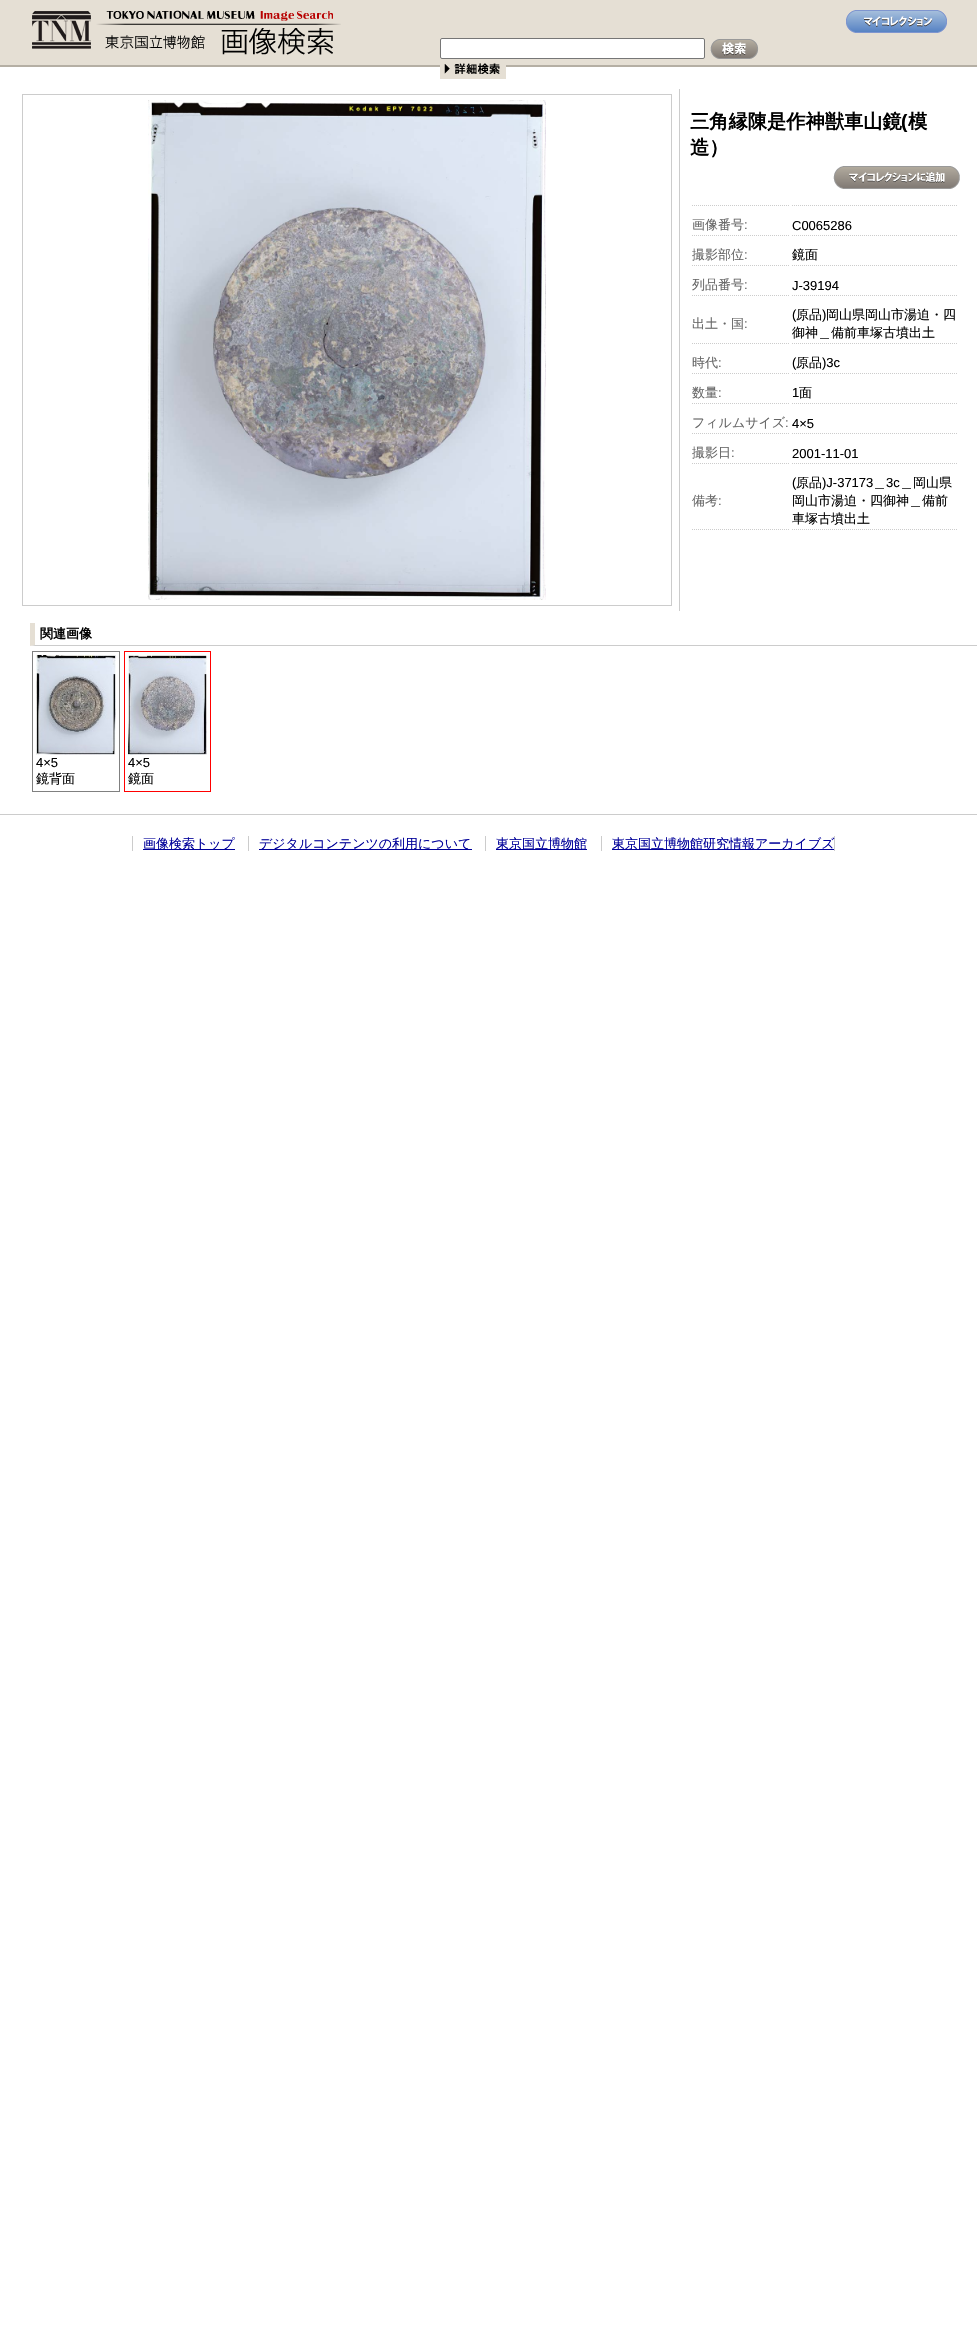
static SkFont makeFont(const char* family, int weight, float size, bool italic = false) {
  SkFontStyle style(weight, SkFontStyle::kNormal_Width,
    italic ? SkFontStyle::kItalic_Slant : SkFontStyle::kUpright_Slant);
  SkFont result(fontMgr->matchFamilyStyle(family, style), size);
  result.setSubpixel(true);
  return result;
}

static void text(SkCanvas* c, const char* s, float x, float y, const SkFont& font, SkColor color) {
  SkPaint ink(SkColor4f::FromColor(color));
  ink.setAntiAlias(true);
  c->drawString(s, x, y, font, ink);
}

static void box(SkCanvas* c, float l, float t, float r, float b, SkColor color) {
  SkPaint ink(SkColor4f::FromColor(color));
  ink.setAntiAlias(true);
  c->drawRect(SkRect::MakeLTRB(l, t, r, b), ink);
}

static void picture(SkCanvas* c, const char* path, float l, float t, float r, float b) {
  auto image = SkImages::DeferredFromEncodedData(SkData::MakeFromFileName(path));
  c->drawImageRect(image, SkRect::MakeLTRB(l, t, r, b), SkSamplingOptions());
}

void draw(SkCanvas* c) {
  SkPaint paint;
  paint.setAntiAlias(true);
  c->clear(0xffffffff);
  box(c, 0, 0, 977, 65, 0xffe5dfd4);
  box(c, 0, 65, 977, 67, 0xffb5afa4);
  picture(c, "img_01.png", 32, 10, 341, 55);
  paint.setColor(0xffffffff);
  c->drawRoundRect(SkRect::MakeLTRB(440.5f, 38.5f, 704.5f, 58.5f), 1.5f, 1.5f, paint);
  paint.setStyle(SkPaint::kStroke_Style);
  paint.setStrokeWidth(1);
  paint.setColor(0xff767676);
  c->drawRoundRect(SkRect::MakeLTRB(440.5f, 38.5f, 704.5f, 58.5f), 1.5f, 1.5f, paint);
  picture(c, "img_02.png", 710, 39, 759, 59);
  picture(c, "img_03.png", 440, 63, 506, 79);
  picture(c, "img_04.png", 846, 10, 947, 33);
  paint.setColor(0xffcccccc);
  c->drawRect(SkRect::MakeLTRB(22.5f, 94.5f, 671.5f, 605.5f), paint);
  picture(c, "img_05.png", 148, 100, 546, 600);
  box(c, 679, 89, 680, 611, 0xffcccccc);
  SkFont face1 = makeFont("WenQuanYi Zen Hei", 700, 19.25f);
  text(c, "三角縁陳是作神獣車山鏡", 690, 128, face1, 0xff000000);
  SkFont face2 = makeFont("Liberation Sans", 700, 19.25f);
  text(c, "(", 901, 128, face2, 0xff000000);
  text(c, "模", 908, 128, face1, 0xff000000);
  text(c, "造）", 690, 154, face1, 0xff000000);
  picture(c, "img_06.png", 833, 166, 960, 189);
  paint.setPathEffect(SkDashPathEffect::Make({{1, 1}}, 0));
  c->drawPath(SkPathBuilder().moveTo(692, 205.5f).lineTo(790, 205.5f).detach(), paint);
  paint.setPathEffect(nullptr);
  paint.setPathEffect(SkDashPathEffect::Make({{1, 1}}, 0));
  c->drawPath(SkPathBuilder().moveTo(792, 205.5f).lineTo(958, 205.5f).detach(), paint);
  paint.setPathEffect(nullptr);
  paint.setPathEffect(SkDashPathEffect::Make({{1, 1}}, 0));
  c->drawPath(SkPathBuilder().moveTo(692, 235.5f).lineTo(790, 235.5f).detach(), paint);
  paint.setPathEffect(nullptr);
  SkFont face3 = makeFont("WenQuanYi Zen Hei", 500, 13);
  text(c, "画像番号", 692, 229, face3, 0xff666666);
  SkFont face4 = makeFont("Liberation Sans", 400, 13);
  text(c, ":", 744, 229, face4, 0xff666666);
  paint.setPathEffect(SkDashPathEffect::Make({{1, 1}}, 0));
  c->drawPath(SkPathBuilder().moveTo(792, 235.5f).lineTo(958, 235.5f).detach(), paint);
  paint.setPathEffect(nullptr);
  text(c, "C0065286", 792, 230, face4, 0xff000000);
  paint.setPathEffect(SkDashPathEffect::Make({{1, 1}}, 0));
  c->drawPath(SkPathBuilder().moveTo(692, 265.5f).lineTo(790, 265.5f).detach(), paint);
  paint.setPathEffect(nullptr);
  text(c, "撮影部位", 692, 259, face3, 0xff666666);
  text(c, ":", 744, 259, face4, 0xff666666);
  paint.setPathEffect(SkDashPathEffect::Make({{1, 1}}, 0));
  c->drawPath(SkPathBuilder().moveTo(792, 265.5f).lineTo(958, 265.5f).detach(), paint);
  paint.setPathEffect(nullptr);
  text(c, "鏡面", 792, 259, face3, 0xff000000);
  paint.setPathEffect(SkDashPathEffect::Make({{1, 1}}, 0));
  c->drawPath(SkPathBuilder().moveTo(692, 295.5f).lineTo(790, 295.5f).detach(), paint);
  paint.setPathEffect(nullptr);
  text(c, "列品番号", 692, 289, face3, 0xff666666);
  text(c, ":", 744, 289, face4, 0xff666666);
  paint.setPathEffect(SkDashPathEffect::Make({{1, 1}}, 0));
  c->drawPath(SkPathBuilder().moveTo(792, 295.5f).lineTo(958, 295.5f).detach(), paint);
  paint.setPathEffect(nullptr);
  text(c, "J-39194", 792, 290, face4, 0xff000000);
  paint.setPathEffect(SkDashPathEffect::Make({{1, 1}}, 0));
  c->drawPath(SkPathBuilder().moveTo(692, 343.5f).lineTo(790, 343.5f).detach(), paint);
  paint.setPathEffect(nullptr);
  text(c, "出土・国", 692, 328, face3, 0xff666666);
  text(c, ":", 744, 328, face4, 0xff666666);
  paint.setPathEffect(SkDashPathEffect::Make({{1, 1}}, 0));
  c->drawPath(SkPathBuilder().moveTo(792, 343.5f).lineTo(958, 343.5f).detach(), paint);
  paint.setPathEffect(nullptr);
  text(c, "(", 792, 319, face4, 0xff000000);
  text(c, "原品", 796, 319, face3, 0xff000000);
  text(c, ")", 822, 319, face4, 0xff000000);
  text(c, "岡山県岡山市湯迫・四", 826, 319, face3, 0xff000000);
  text(c, "御神＿備前車塚古墳出土", 792, 337, face3, 0xff000000);
  paint.setPathEffect(SkDashPathEffect::Make({{1, 1}}, 0));
  c->drawPath(SkPathBuilder().moveTo(692, 373.5f).lineTo(790, 373.5f).detach(), paint);
  paint.setPathEffect(nullptr);
  text(c, "時代", 692, 367, face3, 0xff666666);
  text(c, ":", 718, 367, face4, 0xff666666);
  paint.setPathEffect(SkDashPathEffect::Make({{1, 1}}, 0));
  c->drawPath(SkPathBuilder().moveTo(792, 373.5f).lineTo(958, 373.5f).detach(), paint);
  paint.setPathEffect(nullptr);
  text(c, "(", 792, 367, face4, 0xff000000);
  text(c, "原品", 796, 367, face3, 0xff000000);
  text(c, ")3c", 822, 367, face4, 0xff000000);
  paint.setPathEffect(SkDashPathEffect::Make({{1, 1}}, 0));
  c->drawPath(SkPathBuilder().moveTo(692, 403.5f).lineTo(790, 403.5f).detach(), paint);
  paint.setPathEffect(nullptr);
  text(c, "数量", 692, 397, face3, 0xff666666);
  text(c, ":", 718, 397, face4, 0xff666666);
  paint.setPathEffect(SkDashPathEffect::Make({{1, 1}}, 0));
  c->drawPath(SkPathBuilder().moveTo(792, 403.5f).lineTo(958, 403.5f).detach(), paint);
  paint.setPathEffect(nullptr);
  text(c, "1", 792, 397, face4, 0xff000000);
  text(c, "面", 799, 397, face3, 0xff000000);
  paint.setPathEffect(SkDashPathEffect::Make({{1, 1}}, 0));
  c->drawPath(SkPathBuilder().moveTo(692, 433.5f).lineTo(790, 433.5f).detach(), paint);
  paint.setPathEffect(nullptr);
  text(c, "フィルムサイズ", 692, 427, face3, 0xff666666);
  text(c, ":", 785, 427, face4, 0xff666666);
  paint.setPathEffect(SkDashPathEffect::Make({{1, 1}}, 0));
  c->drawPath(SkPathBuilder().moveTo(792, 433.5f).lineTo(958, 433.5f).detach(), paint);
  paint.setPathEffect(nullptr);
  text(c, "4×5", 792, 428, face4, 0xff000000);
  paint.setPathEffect(SkDashPathEffect::Make({{1, 1}}, 0));
  c->drawPath(SkPathBuilder().moveTo(692, 463.5f).lineTo(790, 463.5f).detach(), paint);
  paint.setPathEffect(nullptr);
  text(c, "撮影日", 692, 457, face3, 0xff666666);
  text(c, ":", 731, 457, face4, 0xff666666);
  paint.setPathEffect(SkDashPathEffect::Make({{1, 1}}, 0));
  c->drawPath(SkPathBuilder().moveTo(792, 463.5f).lineTo(958, 463.5f).detach(), paint);
  paint.setPathEffect(nullptr);
  text(c, "2001-11-01", 792, 458, face4, 0xff000000);
  paint.setPathEffect(SkDashPathEffect::Make({{1, 1}}, 0));
  c->drawPath(SkPathBuilder().moveTo(692, 529.5f).lineTo(790, 529.5f).detach(), paint);
  paint.setPathEffect(nullptr);
  text(c, "備考", 692, 505, face3, 0xff666666);
  text(c, ":", 718, 505, face4, 0xff666666);
  paint.setPathEffect(SkDashPathEffect::Make({{1, 1}}, 0));
  c->drawPath(SkPathBuilder().moveTo(792, 529.5f).lineTo(958, 529.5f).detach(), paint);
  paint.setPathEffect(nullptr);
  text(c, "(", 792, 487, face4, 0xff000000);
  text(c, "原品", 796, 487, face3, 0xff000000);
  text(c, ")J-37173", 822, 487, face4, 0xff000000);
  text(c, "＿", 873, 487, face3, 0xff000000);
  text(c, "3c", 886, 487, face4, 0xff000000);
  text(c, "＿岡山県", 900, 487, face3, 0xff000000);
  text(c, "岡山市湯迫・四御神＿備前", 792, 505, face3, 0xff000000);
  text(c, "車塚古墳出土", 792, 523, face3, 0xff000000);
  paint.setStyle(SkPaint::kFill_Style);
  c->drawPath(SkPathBuilder().moveTo(977, 646).lineTo(30, 646).lineTo(35, 645).lineTo(977, 645).close().detach(), paint);
  paint.setColor(0xffe5dfd4);
  c->drawPath(SkPathBuilder().moveTo(30, 646).lineTo(30, 623).lineTo(35, 623).lineTo(35, 645).close().detach(), paint);
  SkFont face5 = makeFont("WenQuanYi Zen Hei", 700, 13);
  text(c, "関連画像", 40, 638, face5, 0xff000000);
  paint.setStyle(SkPaint::kStroke_Style);
  paint.setColor(0xff808080);
  c->drawRect(SkRect::MakeLTRB(32.5f, 651.5f, 119.5f, 791.5f), paint);
  picture(c, "img_07.png", 36, 655, 116, 755);
  text(c, "4×5", 36, 767, face4, 0xff000000);
  text(c, "鏡背面", 36, 783, face3, 0xff000000);
  paint.setColor(0xffff0000);
  c->drawRect(SkRect::MakeLTRB(124.5f, 651.5f, 210.5f, 791.5f), paint);
  picture(c, "img_08.png", 128, 655, 207, 755);
  text(c, "4×5", 128, 767, face4, 0xff000000);
  text(c, "鏡面", 128, 783, face3, 0xff000000);
  box(c, 0, 814, 977, 815, 0xffcccccc);
  box(c, 143, 849, 235, 850, 0xff000099);
  text(c, "画像検索トップ", 143, 848, face3, 0xff000099);
  box(c, 132, 836, 133, 851, 0xffcccccc);
  box(c, 259, 849, 472, 850, 0xff000099);
  text(c, "デジタルコンテンツの利用について", 259, 848, face3, 0xff000099);
  box(c, 248, 836, 249, 851, 0xffcccccc);
  box(c, 496, 849, 587, 850, 0xff000099);
  text(c, "東京国立博物館", 496, 848, face3, 0xff000099);
  box(c, 485, 836, 486, 851, 0xffcccccc);
  box(c, 834, 836, 835, 851, 0xffcccccc);
  box(c, 612, 849, 834, 850, 0xff000099);
  text(c, "東京国立博物館研究情報アーカイブズ", 612, 848, face3, 0xff000099);
  box(c, 601, 836, 602, 851, 0xffcccccc);
}
